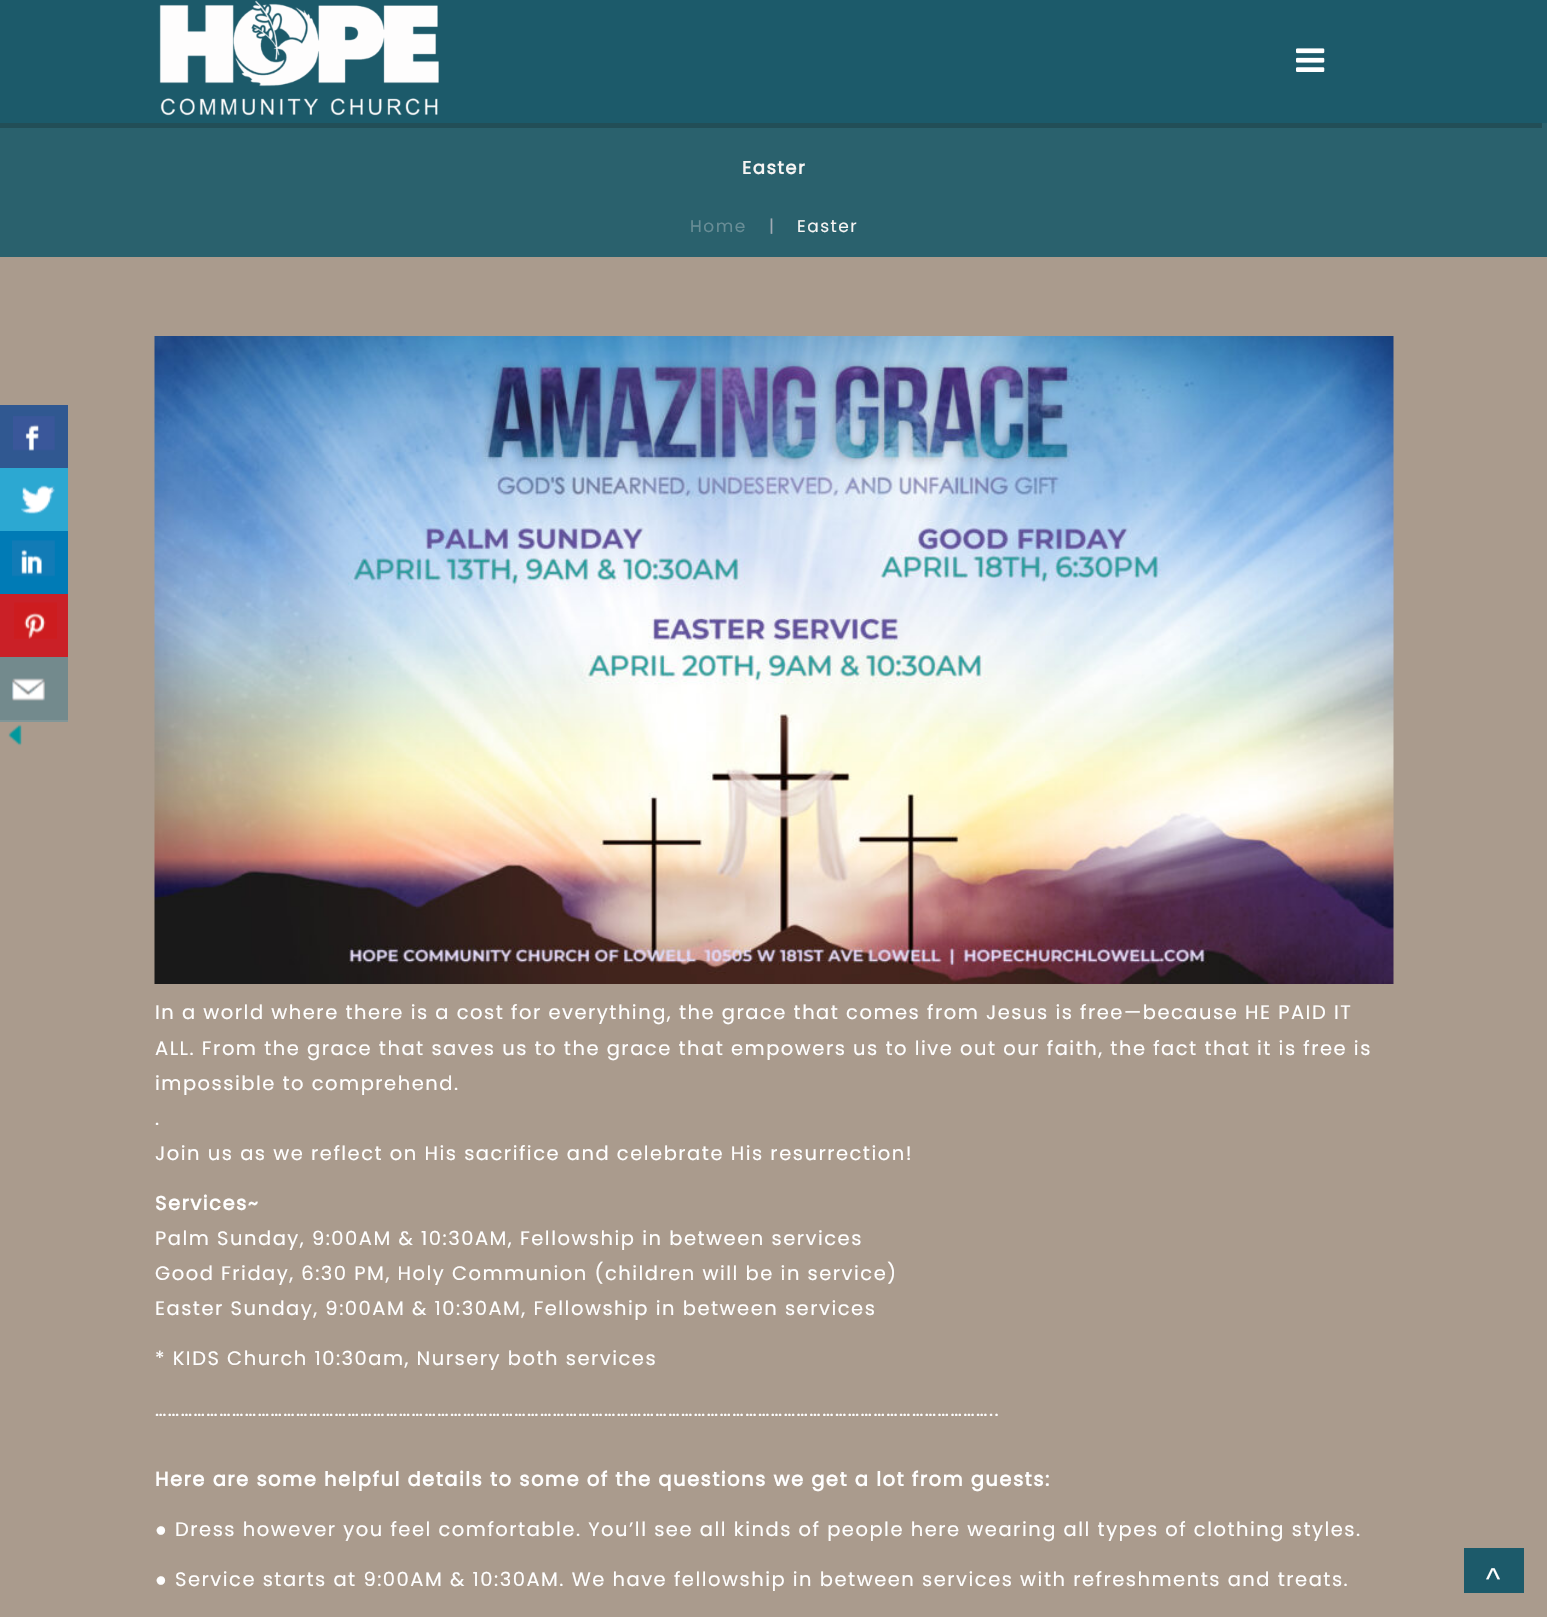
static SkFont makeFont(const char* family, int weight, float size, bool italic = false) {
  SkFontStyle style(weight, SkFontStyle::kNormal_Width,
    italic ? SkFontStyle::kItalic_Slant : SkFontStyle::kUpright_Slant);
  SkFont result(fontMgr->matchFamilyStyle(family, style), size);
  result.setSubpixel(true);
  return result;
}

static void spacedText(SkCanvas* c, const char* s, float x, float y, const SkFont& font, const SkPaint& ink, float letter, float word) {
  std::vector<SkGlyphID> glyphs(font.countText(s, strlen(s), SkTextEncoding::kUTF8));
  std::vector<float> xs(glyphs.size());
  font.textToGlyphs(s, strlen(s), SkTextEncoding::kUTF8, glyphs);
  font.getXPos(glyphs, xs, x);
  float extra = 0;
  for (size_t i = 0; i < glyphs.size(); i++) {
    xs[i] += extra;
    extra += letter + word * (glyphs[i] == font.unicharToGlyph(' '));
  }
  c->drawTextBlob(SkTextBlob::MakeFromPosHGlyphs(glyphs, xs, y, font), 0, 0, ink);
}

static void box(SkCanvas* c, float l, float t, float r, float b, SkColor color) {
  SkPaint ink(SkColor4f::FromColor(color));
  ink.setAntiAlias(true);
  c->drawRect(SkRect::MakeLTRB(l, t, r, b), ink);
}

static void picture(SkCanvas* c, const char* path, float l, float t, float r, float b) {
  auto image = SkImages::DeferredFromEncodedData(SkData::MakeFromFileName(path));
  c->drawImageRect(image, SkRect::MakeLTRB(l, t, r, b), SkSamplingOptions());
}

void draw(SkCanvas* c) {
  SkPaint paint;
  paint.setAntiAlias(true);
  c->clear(0xffaa9b8d);
  box(c, 0, 123, 1547, 257, 0xff2a616d);
  paint.setColor(0xff224e57);
  c->drawPath(SkPathBuilder().moveTo(-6, 5).lineTo(-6, 128).lineTo(1542, 128).lineTo(1542, 123).lineTo(0, 123).lineTo(0, 5).close().detach(), paint);
  box(c, 0, 0, 1547, 123, 0xff1c5a6a);
  picture(c, "img_01.png", 159, 0, 439, 116);
  picture(c, "img_02.png", 1296, 48, 1325, 72);
  SkFont face1 = makeFont("Poppins", 700, 18);
  paint.setColor(0xfff7f5f4);
  spacedText(c, "Easter", 742, 174, face1, paint, 1.5f, 0);
  SkFont face2 = makeFont("Poppins", 400, 17);
  paint.setColor(0xff688d96);
  spacedText(c, "Home", 690, 232, face2, paint, 1.5f, 0);
  paint.setColor(0xffa1aab4);
  spacedText(c, "|", 769, 232, face2, paint, 1.5f, 0);
  paint.setColor(0xfff7f5f4);
  spacedText(c, "Easter", 797, 232, face2, paint, 1.5f, 0);
  box(c, 0, 405, 68, 468, 0xff305891);
  picture(c, "img_03.png", 13, 416, 55, 451);
  box(c, 0, 468, 68, 531, 0xff2ca8d2);
  picture(c, "img_04.png", 21, 485, 55, 514);
  box(c, 0, 531, 68, 594, 0xff007bb6);
  picture(c, "img_05.png", 12, 540, 55, 577);
  box(c, 0, 594, 68, 657, 0xffca2027);
  picture(c, "img_06.png", 14, 602, 57, 639);
  box(c, 0, 657, 68, 720, 0xff738a8d);
  box(c, 0, 720, 68, 722, 0xff819698);
  picture(c, "img_07.png", 12, 678, 45, 701);
  picture(c, "img_08.png", 8, 724, 22, 746);
  picture(c, "img_09.png", 154, 336, 1394, 984);
  SkFont face3 = makeFont("Poppins", 400, 19.5f);
  paint.setColor(0xffffffff);
  spacedText(c, "In a world where there is a cost for everything, the grace that comes from Jesus is free—because HE PAID IT", 155, 1019, face3, paint, 1.5f, 0);
  spacedText(c, "ALL. From the grace that saves us to the grace that empowers us to live out our faith, the fact that it is free is", 155, 1055, face3, paint, 1.5f, 0);
  spacedText(c, "impossible to comprehend.", 155, 1090, face3, paint, 1.5f, 0);
  spacedText(c, ".", 155, 1125, face3, paint, 1.5f, 0);
  spacedText(c, "Join us as we reflect on His sacrifice and celebrate His resurrection!", 155, 1160, face3, paint, 1.5f, 0);
  SkFont face4 = makeFont("Poppins", 700, 19.5f);
  spacedText(c, "Services~", 155, 1210, face4, paint, 1.5f, 0);
  spacedText(c, "Palm Sunday, 9:00AM & 10:30AM, Fellowship in between services", 155, 1245, face3, paint, 1.5f, 0);
  spacedText(c, "Good Friday, 6:30 PM, Holy Communion (children will be in service)", 155, 1280, face3, paint, 1.5f, 0);
  spacedText(c, "Easter Sunday, 9:00AM & 10:30AM, Fellowship in between services", 155, 1315, face3, paint, 1.5f, 0);
  spacedText(c, "* KIDS Church 10:30am, Nursery both services", 155, 1365, face3, paint, 1.5f, 0);
  spacedText(c, "……………………………………………………………………………………………………………………………………………………………………………..", 155, 1416, face3, paint, 1.5f, 0);
  spacedText(c, "Here are some helpful details to some of the questions we get a lot from guests:", 155, 1486, face4, paint, 1.5f, 0);
  SkFont face5 = makeFont("Liberation Sans", 400, 19.5f);
  spacedText(c, "●", 155, 1536, face5, paint, 1.5f, 0);
  spacedText(c, "Dress however you feel comfortable. You’ll see all kinds of people here wearing all types of clothing styles.", 175, 1536, face3, paint, 1.5f, 0);
  spacedText(c, "●", 155, 1586, face5, paint, 1.5f, 0);
  spacedText(c, "Service starts at 9:00AM & 10:30AM. We have fellowship in between services with refreshments and treats.", 175, 1586, face3, paint, 1.5f, 0);
  box(c, 1464, 1548, 1524, 1593, 0xff1c5a6a);
  SkFont face6 = makeFont("Liberation Sans", 400, 30);
  spacedText(c, "^", 1486, 1589, face6, paint, 1.5f, 0);
}
